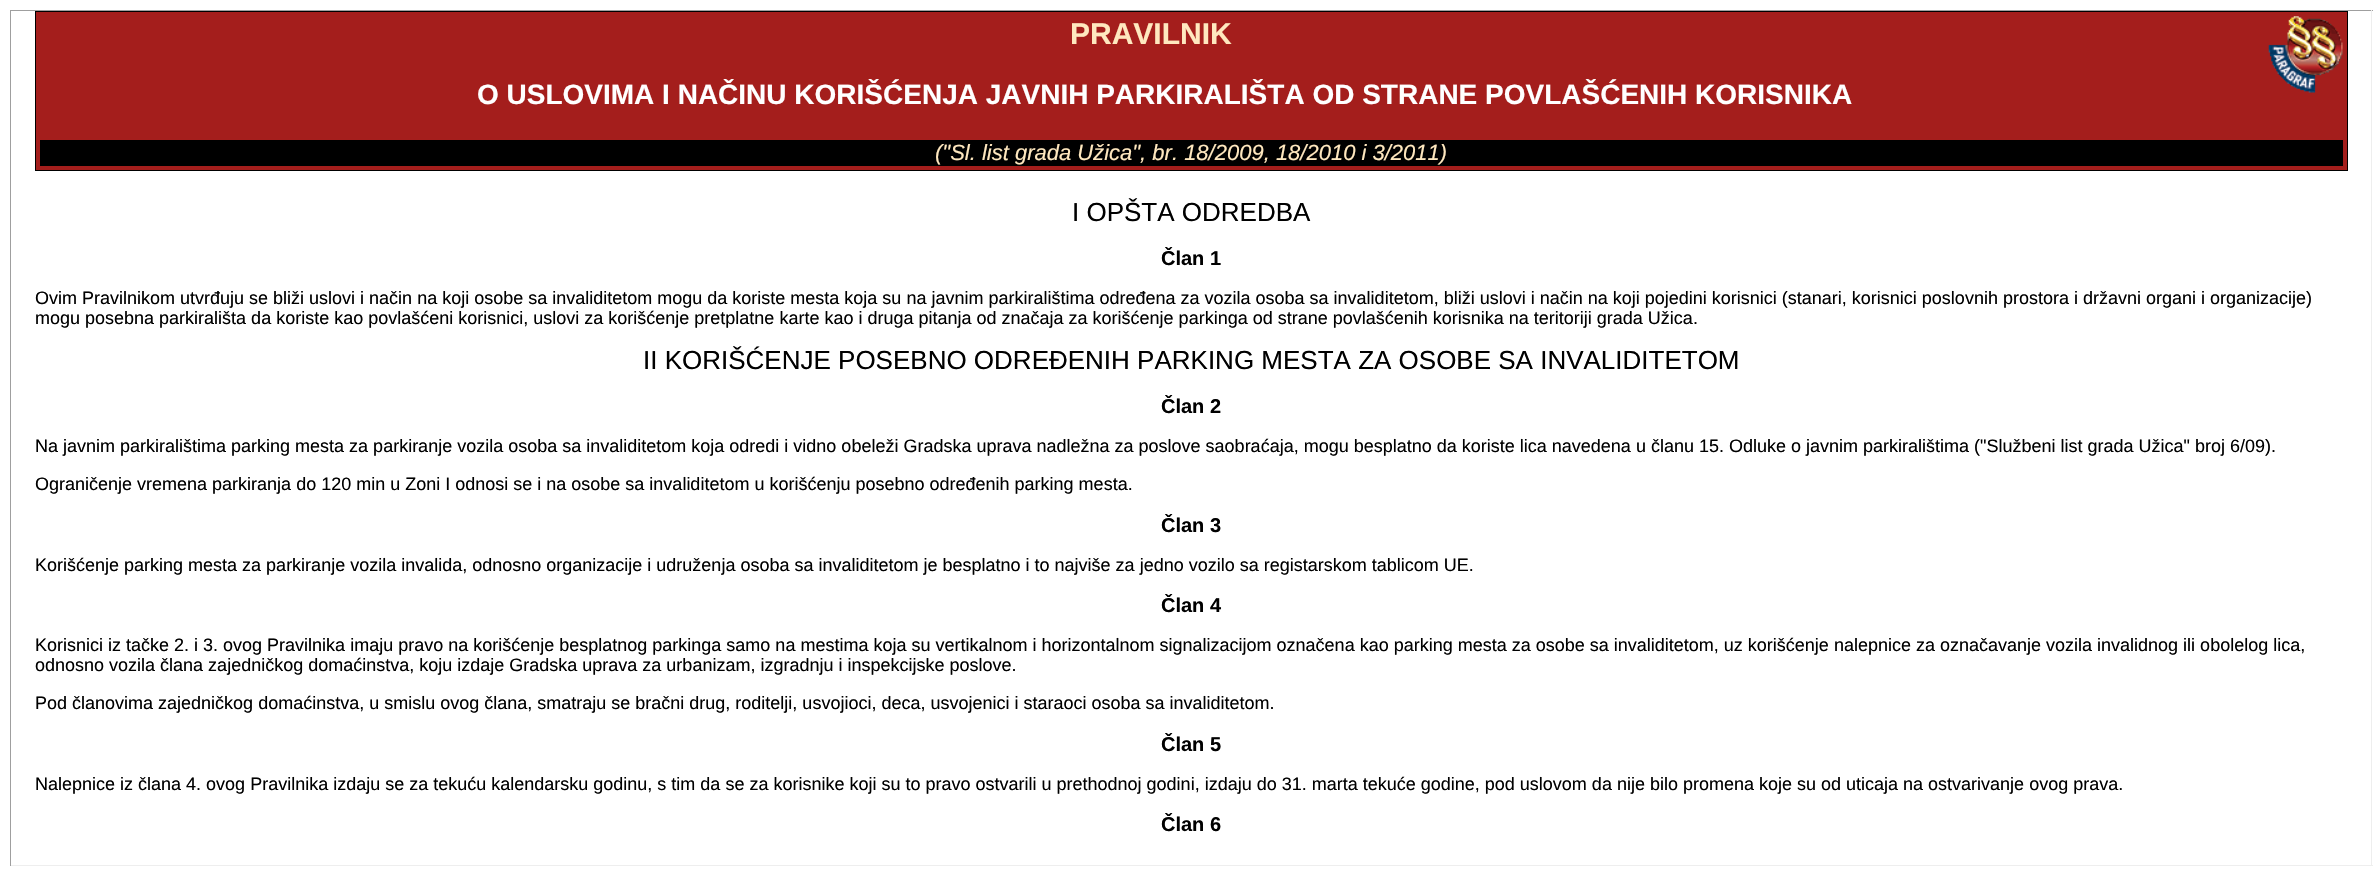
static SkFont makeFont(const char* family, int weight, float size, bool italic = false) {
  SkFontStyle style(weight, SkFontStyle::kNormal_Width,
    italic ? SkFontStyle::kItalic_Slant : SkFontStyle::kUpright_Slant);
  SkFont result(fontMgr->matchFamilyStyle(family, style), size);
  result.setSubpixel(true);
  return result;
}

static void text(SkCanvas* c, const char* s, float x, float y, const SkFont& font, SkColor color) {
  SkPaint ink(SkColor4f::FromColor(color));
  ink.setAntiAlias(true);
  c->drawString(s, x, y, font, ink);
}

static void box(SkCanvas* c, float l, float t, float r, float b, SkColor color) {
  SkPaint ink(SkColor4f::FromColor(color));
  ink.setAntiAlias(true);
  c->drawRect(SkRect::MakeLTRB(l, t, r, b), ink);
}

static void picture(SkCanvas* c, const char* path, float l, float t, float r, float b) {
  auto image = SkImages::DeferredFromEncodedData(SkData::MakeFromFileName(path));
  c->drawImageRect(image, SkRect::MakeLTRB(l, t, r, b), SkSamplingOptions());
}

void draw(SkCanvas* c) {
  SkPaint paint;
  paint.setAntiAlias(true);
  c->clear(0xffffffff);
  box(c, 10, 10, 2373, 11, 0xff9f9f9f);
  box(c, 2371, 10, 2372, 866, 0xffeeeeee);
  box(c, 10, 865, 2373, 866, 0xffeeeeee);
  box(c, 10, 10, 11, 866, 0xff9f9f9f);
  box(c, 36, 12, 2347, 170, 0xffa41e1c);
  picture(c, "img_01.png", 2268, 16, 2343, 93);
  paint.setStyle(SkPaint::kStroke_Style);
  paint.setStrokeWidth(1);
  paint.setColor(0xff000000);
  c->drawRect(SkRect::MakeLTRB(35.5f, 11.5f, 2347.5f, 170.5f), paint);
  SkFont face1 = makeFont("Liberation Sans", 700, 30);
  text(c, "PRAVILNIK", 1070, 44, face1, 0xffffe8bf);
  SkFont face2 = makeFont("Liberation Sans", 700, 28);
  text(c, "O USLOVIMA I NAČINU KORIŠĆENJA JAVNIH PARKIRALIŠTA OD STRANE POVLAŠĆENIH KORISNIKA", 477, 104, face2, 0xffffffff);
  box(c, 40, 140, 2343, 166, 0xff000000);
  SkFont face3 = makeFont("Liberation Sans", 400, 22, true);
  text(c, "(\"Sl. list grada Užica\", br. 18/2009, 18/2010 i 3/2011)", 935, 160, face3, 0xffffe8bf);
  SkFont face4 = makeFont("Liberation Sans", 400, 26);
  text(c, "I OPŠTA ODREDBA", 1072, 221, face4, 0xff000000);
  SkFont face5 = makeFont("Liberation Sans", 700, 20);
  text(c, "Član 1", 1161, 265, face5, 0xff000000);
  SkFont face6 = makeFont("Liberation Sans", 400, 18);
  text(c, "Ovim Pravilnikom utvrđuju se bliži uslovi i način na koji osobe sa invaliditetom mogu da koriste mesta koja su na javnim parkiralištima određena za vozila osoba sa invaliditetom, bliži uslovi i način na koji pojedini korisnici (stanari, korisnici poslovnih prostora i državni organi i organizacije)", 35, 304, face6, 0xff000000);
  text(c, "mogu posebna parkirališta da koriste kao povlašćeni korisnici, uslovi za korišćenje pretplatne karte kao i druga pitanja od značaja za korišćenje parkinga od strane povlašćenih korisnika na teritoriji grada Užica.", 35, 324, face6, 0xff000000);
  text(c, "II KORIŠĆENJE POSEBNO ODREĐENIH PARKING MESTA ZA OSOBE SA INVALIDITETOM", 643, 369, face4, 0xff000000);
  text(c, "Član 2", 1161, 413, face5, 0xff000000);
  text(c, "Na javnim parkiralištima parking mesta za parkiranje vozila osoba sa invaliditetom koja odredi i vidno obeleži Gradska uprava nadležna za poslove saobraćaja, mogu besplatno da koriste lica navedena u članu 15. Odluke o javnim parkiralištima (\"Službeni list grada Užica\" broj 6/09).", 35, 452, face6, 0xff000000);
  text(c, "Ograničenje vremena parkiranja do 120 min u Zoni I odnosi se i na osobe sa invaliditetom u korišćenju posebno određenih parking mesta.", 35, 490, face6, 0xff000000);
  text(c, "Član 3", 1161, 532, face5, 0xff000000);
  text(c, "Korišćenje parking mesta za parkiranje vozila invalida, odnosno organizacije i udruženja osoba sa invaliditetom je besplatno i to najviše za jedno vozilo sa registarskom tablicom UE.", 35, 571, face6, 0xff000000);
  text(c, "Član 4", 1161, 612, face5, 0xff000000);
  text(c, "Korisnici iz tačke 2. i 3. ovog Pravilnika imaju pravo na korišćenje besplatnog parkinga samo na mestima koja su vertikalnom i horizontalnom signalizacijom označena kao parking mesta za osobe sa invaliditetom, uz korišćenje nalepnice za označavanje vozila invalidnog ili obolelog lica,", 35, 651, face6, 0xff000000);
  text(c, "odnosno vozila člana zajedničkog domaćinstva, koju izdaje Gradska uprava za urbanizam, izgradnju i inspekcijske poslove.", 35, 671, face6, 0xff000000);
  text(c, "Pod članovima zajedničkog domaćinstva, u smislu ovog člana, smatraju se bračni drug, roditelji, usvojioci, deca, usvojenici i staraoci osoba sa invaliditetom.", 35, 709, face6, 0xff000000);
  text(c, "Član 5", 1161, 751, face5, 0xff000000);
  text(c, "Nalepnice iz člana 4. ovog Pravilnika izdaju se za tekuću kalendarsku godinu, s tim da se za korisnike koji su to pravo ostvarili u prethodnoj godini, izdaju do 31. marta tekuće godine, pod uslovom da nije bilo promena koje su od uticaja na ostvarivanje ovog prava.", 35, 790, face6, 0xff000000);
  text(c, "Član 6", 1161, 831, face5, 0xff000000);
}
